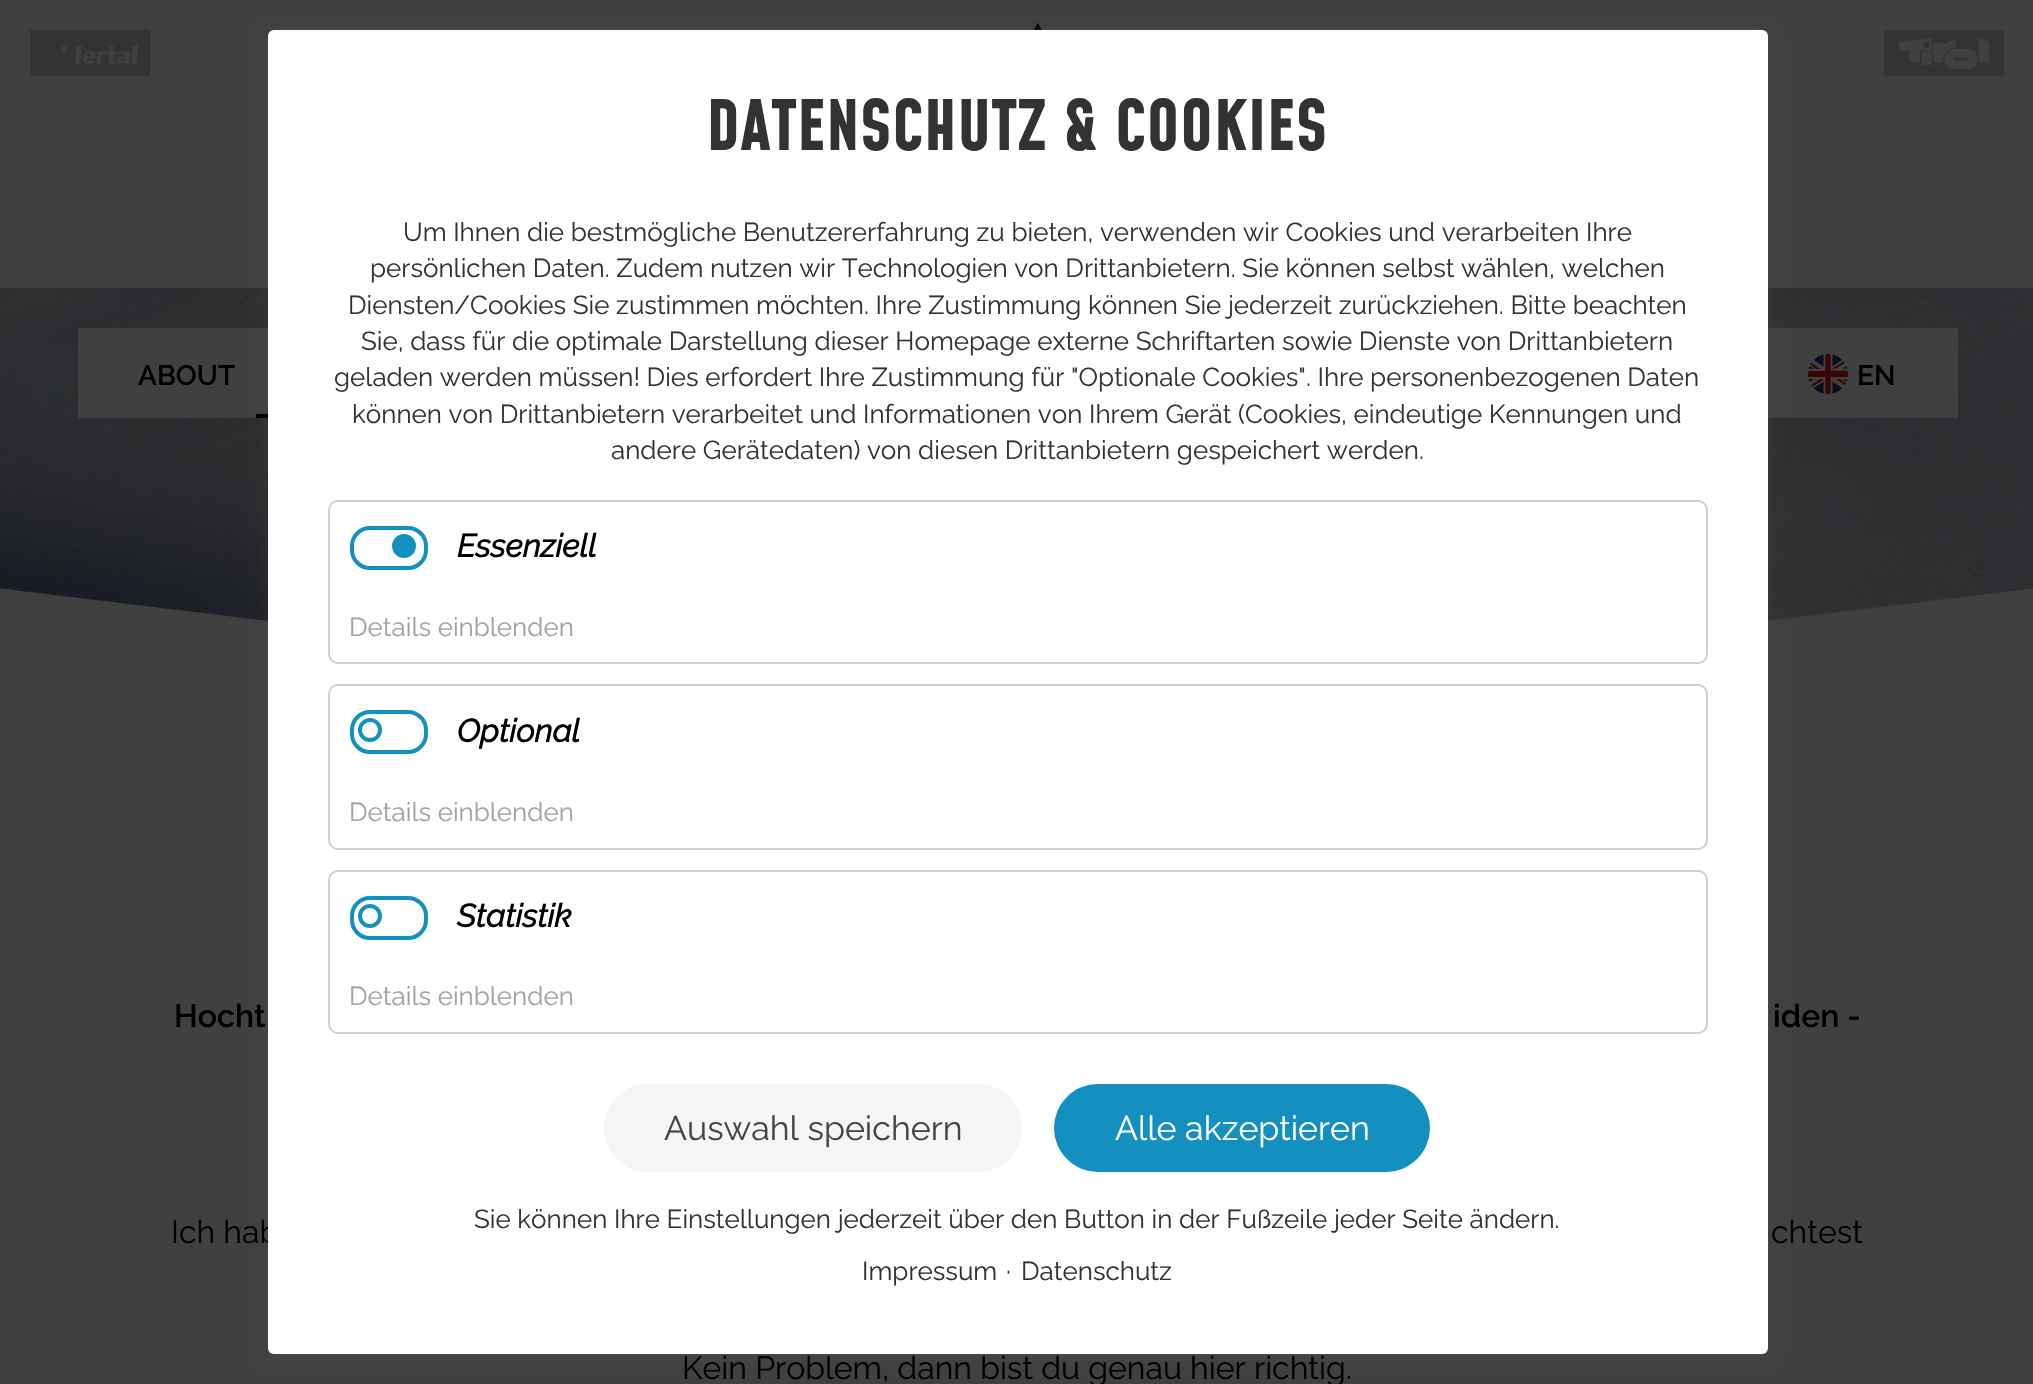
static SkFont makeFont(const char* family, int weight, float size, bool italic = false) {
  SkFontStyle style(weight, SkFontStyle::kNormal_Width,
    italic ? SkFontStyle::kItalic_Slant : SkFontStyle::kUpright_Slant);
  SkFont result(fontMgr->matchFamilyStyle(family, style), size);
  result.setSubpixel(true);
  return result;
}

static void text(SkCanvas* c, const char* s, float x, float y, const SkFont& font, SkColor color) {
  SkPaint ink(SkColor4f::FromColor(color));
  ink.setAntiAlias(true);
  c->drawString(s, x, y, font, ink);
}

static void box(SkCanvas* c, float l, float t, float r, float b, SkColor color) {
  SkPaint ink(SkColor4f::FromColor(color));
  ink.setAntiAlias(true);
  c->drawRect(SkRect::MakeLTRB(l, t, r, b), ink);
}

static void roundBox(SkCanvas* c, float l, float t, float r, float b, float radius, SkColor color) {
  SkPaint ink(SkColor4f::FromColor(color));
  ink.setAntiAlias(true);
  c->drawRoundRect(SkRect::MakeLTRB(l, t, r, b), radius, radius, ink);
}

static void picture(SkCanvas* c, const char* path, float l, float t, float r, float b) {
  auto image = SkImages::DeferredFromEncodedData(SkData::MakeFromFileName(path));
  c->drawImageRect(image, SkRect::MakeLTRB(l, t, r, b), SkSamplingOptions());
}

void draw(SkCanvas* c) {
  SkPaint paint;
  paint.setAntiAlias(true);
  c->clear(0xff404040);
  picture(c, "img_01.png", 1033, 23, 1042, 30);
  picture(c, "img_04.png", 0, 288, 2033, 622);
  picture(c, "img_05.png", 0, 588, 2033, 712);
  box(c, 78, 328, 1958, 418, 0xff404040);
  box(c, 256, 414, 268, 418, 0xff000000);
  paint.setColor(0x33636363);
  paint.setMaskFilter(SkMaskFilter::MakeBlur(kNormal_SkBlurStyle, 8));
  c->drawRoundRect(SkRect::MakeLTRB(268, 34, 1768, 1358), 6, 6, paint);
  paint.setMaskFilter(nullptr);
  SkFont face1 = makeFont("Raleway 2", 100, 32);
  text(c, "Ich hab", 171, 1243, face1, 0xff000000);
  roundBox(c, 268, 30, 1768, 1354, 6, 0xffffffff);
  SkFont face2 = makeFont("Mohave", 300, 68);
  text(c, "DATENSCHUTZ & COOKIES", 706, 150, face2, 0xff323232);
  SkFont face3 = makeFont("Raleway 2", 100, 26);
  text(c, "Um Ihnen die bestmögliche Benutzererfahrung zu bieten, verwenden wir Cookies und verarbeiten Ihre", 403, 241, face3, 0xff323232);
  text(c, "persönlichen Daten. Zudem nutzen wir Technologien von Drittanbietern. Sie können selbst wählen, welchen", 370, 277, face3, 0xff323232);
  text(c, "Diensten/Cookies Sie zustimmen möchten. Ihre Zustimmung können Sie jederzeit zurückziehen. Bitte beachten", 348, 314, face3, 0xff323232);
  text(c, "Sie, dass für die optimale Darstellung dieser Homepage externe Schriftarten sowie Dienste von Drittanbietern", 361, 350, face3, 0xff323232);
  text(c, "geladen werden müssen! Dies erfordert Ihre Zustimmung für \"Optionale Cookies\". Ihre personenbezogenen Daten", 334, 386, face3, 0xff323232);
  text(c, "können von Drittanbietern verarbeitet und Informationen von Ihrem Gerät (Cookies, eindeutige Kennungen und", 352, 423, face3, 0xff323232);
  text(c, "andere Gerätedaten) von diesen Drittanbietern gespeichert werden.", 611, 459, face3, 0xff323232);
  paint.setStyle(SkPaint::kStroke_Style);
  paint.setStrokeWidth(2);
  paint.setColor(0xffd0d0d0);
  c->drawRoundRect(SkRect::MakeLTRB(329, 501, 1707, 663), 9, 9, paint);
  paint.setStrokeWidth(4);
  paint.setColor(0xff1390be);
  c->drawRoundRect(SkRect::MakeLTRB(352, 528, 426, 568), 18, 18, paint);
  SkFont face4 = makeFont("Raleway", 700, 32, true);
  text(c, "Essenziell", 457, 557, face4, 0xff000000);
  paint.setStyle(SkPaint::kFill_Style);
  c->drawCircle(404, 546, 10, paint);
  paint.setStyle(SkPaint::kStroke_Style);
  c->drawCircle(404, 546, 10, paint);
  text(c, "Details einblenden", 349, 636, face3, 0xffa2a2a2);
  paint.setStrokeWidth(2);
  paint.setColor(0xffd0d0d0);
  c->drawRoundRect(SkRect::MakeLTRB(329, 685, 1707, 849), 9, 9, paint);
  paint.setStrokeWidth(4);
  paint.setColor(0xff1390be);
  c->drawRoundRect(SkRect::MakeLTRB(352, 712, 426, 752), 18, 18, paint);
  c->drawCircle(370, 730, 10, paint);
  text(c, "Optional", 457, 742, face4, 0xff000000);
  text(c, "Details einblenden", 349, 821, face3, 0xffa2a2a2);
  paint.setStrokeWidth(2);
  paint.setColor(0xffd0d0d0);
  c->drawRoundRect(SkRect::MakeLTRB(329, 871, 1707, 1033), 9, 9, paint);
  paint.setStrokeWidth(4);
  paint.setColor(0xff1390be);
  c->drawRoundRect(SkRect::MakeLTRB(352, 898, 426, 938), 18, 18, paint);
  text(c, "Statistik", 457, 927, face4, 0xff000000);
  c->drawCircle(370, 916, 10, paint);
  text(c, "Details einblenden", 349, 1005, face3, 0xffa2a2a2);
  roundBox(c, 604, 1084, 1022, 1172, 44, 0xfff5f5f5);
  SkFont face5 = makeFont("Raleway 2", 100, 34);
  text(c, "Auswahl speichern", 664, 1140, face5, 0xff444444);
  roundBox(c, 1054, 1084, 1430, 1172, 44, 0xff1390be);
  text(c, "Alle akzeptieren", 1115, 1140, face5, 0xffffffff);
  text(c, "Sie können Ihre Einstellungen jederzeit über den Button in der Fußzeile jeder Seite ändern.", 474, 1228, face3, 0xff323232);
  text(c, "Impressum", 862, 1280, face3, 0xff323232);
  text(c, "·", 1006, 1280, face3, 0xff323232);
  text(c, "Datenschutz", 1021, 1280, face3, 0xff323232);
  picture(c, "img_02.png", 30, 30, 150, 76);
  picture(c, "img_03.png", 1884, 30, 2004, 76);
  SkFont face6 = makeFont("Raleway", 100, 28);
  text(c, "ABOUT", 138, 385, face6, 0xff000000);
  picture(c, "img_06.png", 1808, 354, 1848, 394);
  text(c, "EN", 1857, 385, face6, 0xff000000);
  SkFont face7 = makeFont("Raleway", 100, 32);
  text(c, "Hocht", 174, 1027, face7, 0xff000000);
  text(c, "iden -", 1773, 1027, face7, 0xff000000);
  text(c, "chtest", 1771, 1243, face1, 0xff000000);
  text(c, "Kein Problem, dann bist du genau hier richtig.", 682, 1379, face1, 0xff000000);
}
